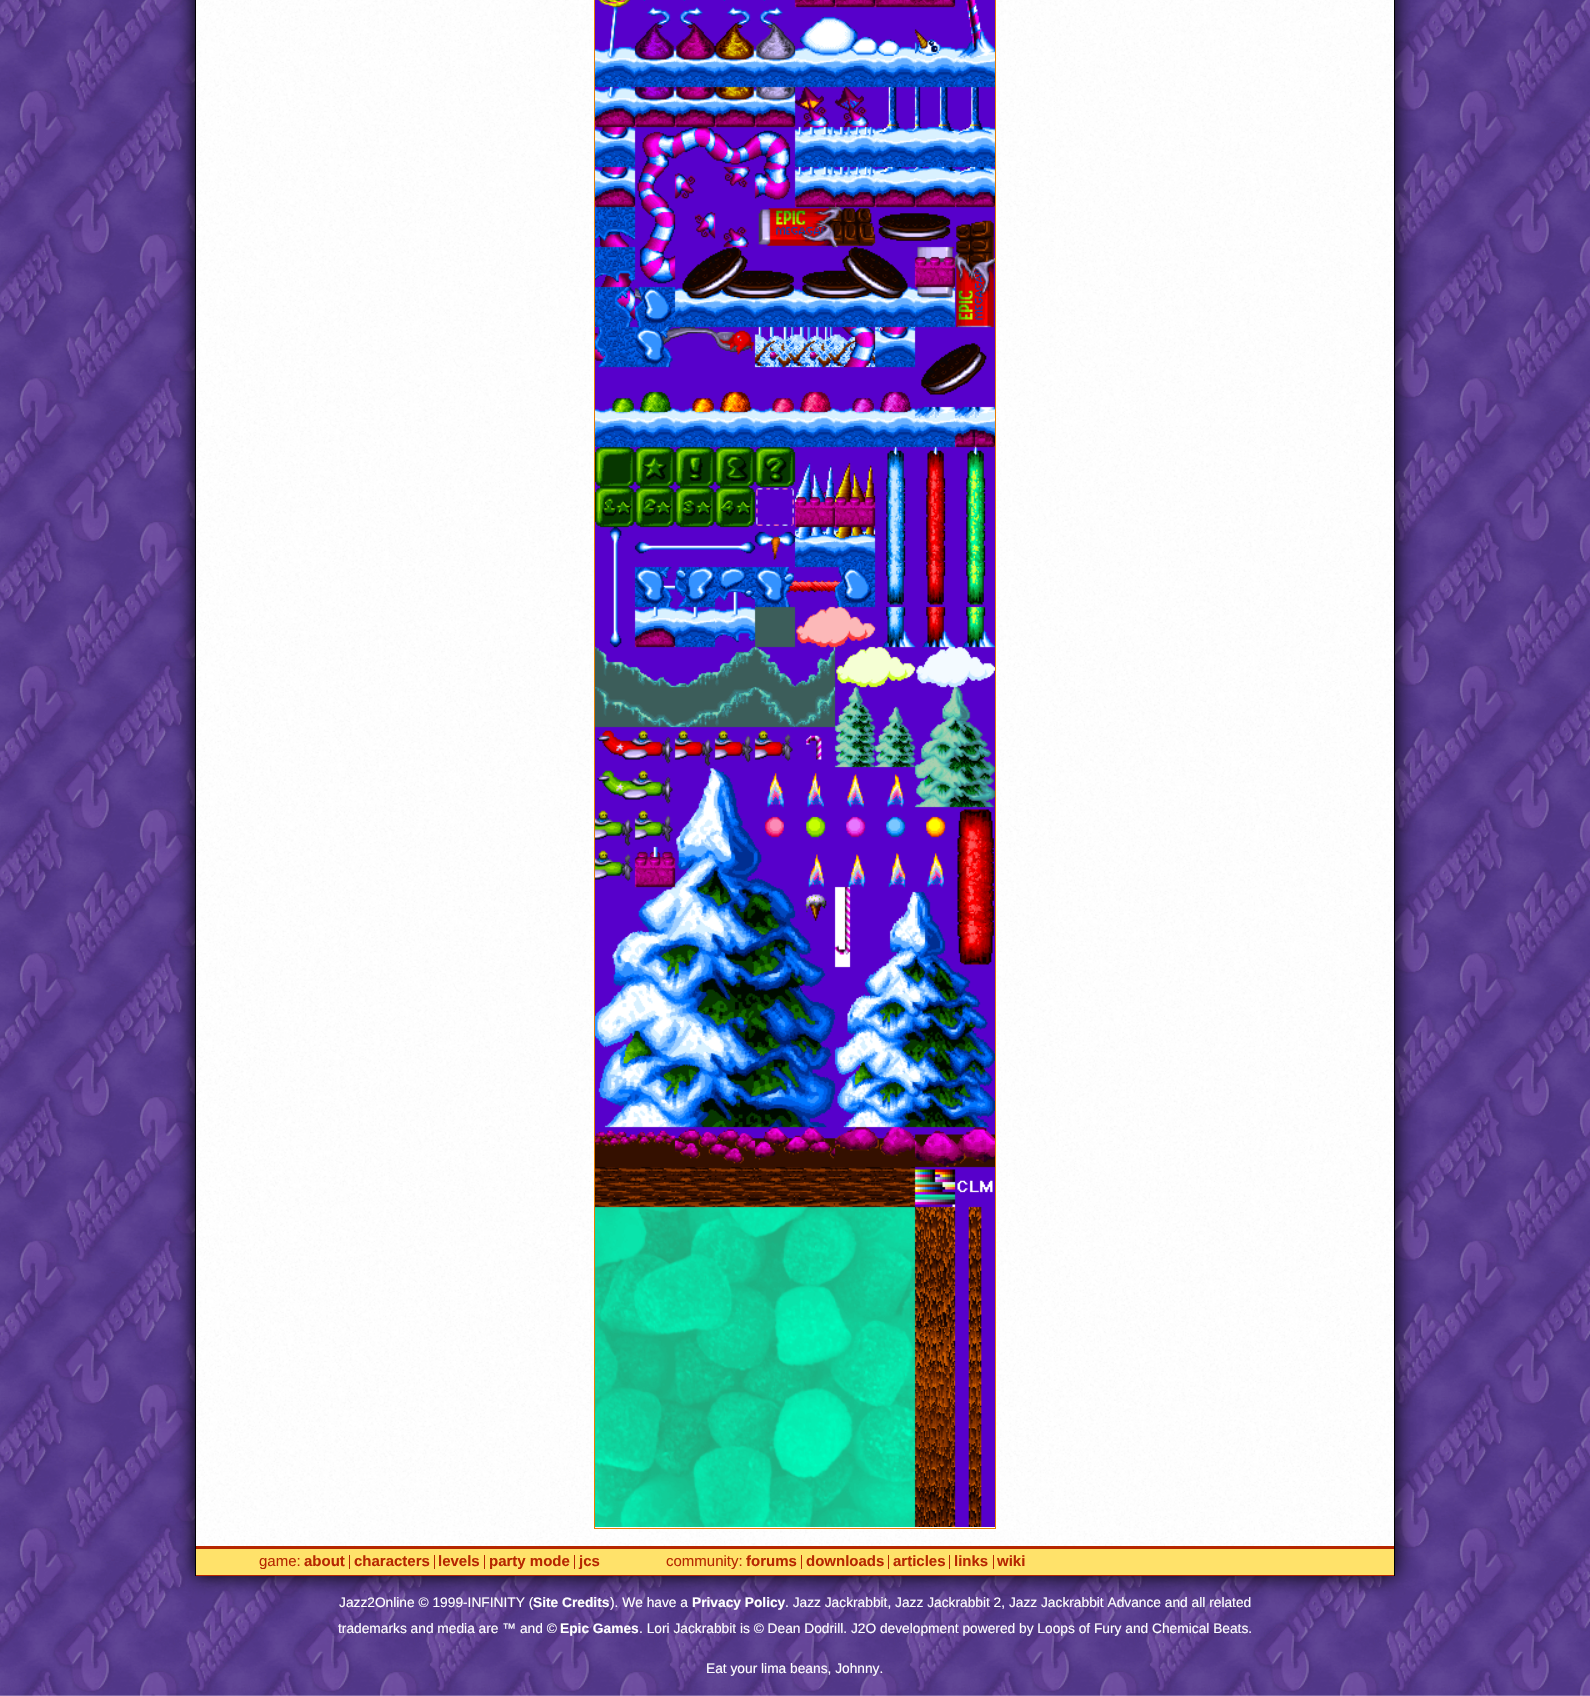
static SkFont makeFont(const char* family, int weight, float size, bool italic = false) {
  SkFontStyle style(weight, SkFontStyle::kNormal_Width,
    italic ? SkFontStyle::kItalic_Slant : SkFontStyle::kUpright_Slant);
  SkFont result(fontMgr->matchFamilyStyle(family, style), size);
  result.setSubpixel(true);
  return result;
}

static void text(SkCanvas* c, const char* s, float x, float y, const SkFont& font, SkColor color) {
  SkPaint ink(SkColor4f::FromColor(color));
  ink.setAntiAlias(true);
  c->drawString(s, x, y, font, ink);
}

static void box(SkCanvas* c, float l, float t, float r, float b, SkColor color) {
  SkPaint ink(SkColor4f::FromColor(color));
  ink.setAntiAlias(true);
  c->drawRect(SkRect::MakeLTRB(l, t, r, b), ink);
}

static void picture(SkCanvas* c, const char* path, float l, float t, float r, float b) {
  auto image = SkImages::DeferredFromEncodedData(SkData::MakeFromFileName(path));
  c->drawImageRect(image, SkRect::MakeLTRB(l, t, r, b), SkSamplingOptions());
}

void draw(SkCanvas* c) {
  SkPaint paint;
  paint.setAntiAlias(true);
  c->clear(0xffffffff);
  picture(c, "img_01.png", 0, 0, 1590, 1696);
  paint.setColor(0xff000000);
  paint.setMaskFilter(SkMaskFilter::MakeBlur(kNormal_SkBlurStyle, 9.5f));
  c->drawRect(SkRect::MakeLTRB(195, -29, 1395, 1576), paint);
  paint.setMaskFilter(nullptr);
  picture(c, "img_02.png", 196, 0, 1394, 1546);
  box(c, 1394, 0, 1395, 1576, 0xff000000);
  box(c, 195, 0, 196, 1576, 0xff000000);
  paint.setStyle(SkPaint::kStroke_Style);
  paint.setStrokeWidth(1);
  paint.setColor(0xffe97f00);
  c->drawRect(SkRect::MakeLTRB(594.5f, -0.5f, 995.5f, 1528.5f), paint);
  picture(c, "img_03.png", 595, 0, 995, 1527);
  box(c, 196, 1549, 1394, 1575, 0xffffe26a);
  box(c, 196, 1546, 1394, 1549, 0xffb62700);
  box(c, 196, 1575, 1394, 1576, 0xffb62700);
  SkFont face1 = makeFont("Liberation Sans", 400, 15);
  text(c, "game:", 259, 1566, face1, 0xffb62700);
  box(c, 349, 1555, 350, 1569, 0xffb62700);
  SkFont face2 = makeFont("Liberation Sans", 700, 15);
  text(c, "about", 304, 1566, face2, 0xffb62700);
  box(c, 434, 1555, 435, 1569, 0xffb62700);
  text(c, "characters", 354, 1566, face2, 0xffb62700);
  box(c, 484, 1555, 485, 1569, 0xffb62700);
  text(c, "levels", 438, 1566, face2, 0xffb62700);
  box(c, 574, 1555, 575, 1569, 0xffb62700);
  text(c, "party mode", 489, 1566, face2, 0xffb62700);
  text(c, "jcs", 579, 1566, face2, 0xffb62700);
  text(c, "community:", 666, 1566, face1, 0xffb62700);
  box(c, 801, 1555, 802, 1569, 0xffb62700);
  text(c, "forums", 746, 1566, face2, 0xffb62700);
  box(c, 888, 1555, 889, 1569, 0xffb62700);
  text(c, "downloads", 806, 1566, face2, 0xffb62700);
  box(c, 949, 1555, 950, 1569, 0xffb62700);
  text(c, "articles", 893, 1566, face2, 0xffb62700);
  box(c, 993, 1555, 994, 1569, 0xffb62700);
  text(c, "links", 954, 1566, face2, 0xffb62700);
  text(c, "wiki", 997, 1566, face2, 0xffb62700);
  SkFont face3 = makeFont("Liberation Sans", 400, 13.75f);
  text(c, "Jazz2Online © 1999-INFINITY (", 339, 1607, face3, 0xffffffff);
  SkFont face4 = makeFont("Liberation Sans", 700, 13.75f);
  text(c, "Site Credits", 533, 1607, face4, 0xffffffff);
  text(c, "). We have a", 610, 1607, face3, 0xffffffff);
  text(c, "Privacy Policy", 692, 1607, face4, 0xffffffff);
  text(c, ". Jazz Jackrabbit, Jazz Jackrabbit 2, Jazz Jackrabbit Advance and all related", 785, 1607, face3, 0xffffffff);
  text(c, "trademarks and media are ™ and ©", 338, 1633, face3, 0xffffffff);
  text(c, "Epic Games", 560, 1633, face4, 0xffffffff);
  text(c, ". Lori Jackrabbit is © Dean Dodrill. J2O development powered by Loops of Fury and Chemical Beats.", 639, 1633, face3, 0xffffffff);
  text(c, "Eat your lima beans, Johnny.", 706, 1673, face3, 0xffffffff);
}
